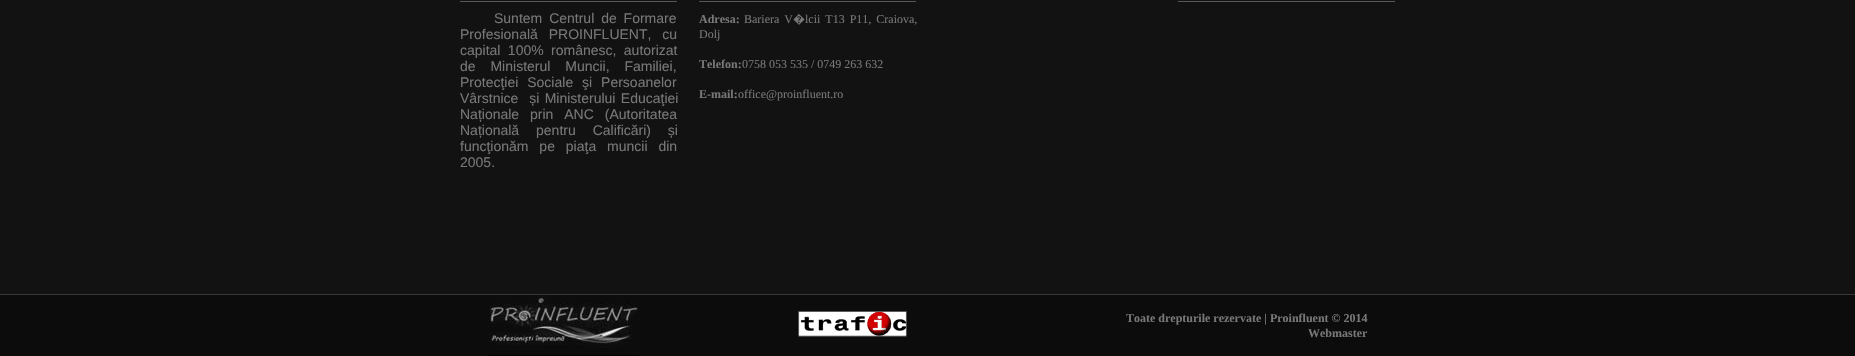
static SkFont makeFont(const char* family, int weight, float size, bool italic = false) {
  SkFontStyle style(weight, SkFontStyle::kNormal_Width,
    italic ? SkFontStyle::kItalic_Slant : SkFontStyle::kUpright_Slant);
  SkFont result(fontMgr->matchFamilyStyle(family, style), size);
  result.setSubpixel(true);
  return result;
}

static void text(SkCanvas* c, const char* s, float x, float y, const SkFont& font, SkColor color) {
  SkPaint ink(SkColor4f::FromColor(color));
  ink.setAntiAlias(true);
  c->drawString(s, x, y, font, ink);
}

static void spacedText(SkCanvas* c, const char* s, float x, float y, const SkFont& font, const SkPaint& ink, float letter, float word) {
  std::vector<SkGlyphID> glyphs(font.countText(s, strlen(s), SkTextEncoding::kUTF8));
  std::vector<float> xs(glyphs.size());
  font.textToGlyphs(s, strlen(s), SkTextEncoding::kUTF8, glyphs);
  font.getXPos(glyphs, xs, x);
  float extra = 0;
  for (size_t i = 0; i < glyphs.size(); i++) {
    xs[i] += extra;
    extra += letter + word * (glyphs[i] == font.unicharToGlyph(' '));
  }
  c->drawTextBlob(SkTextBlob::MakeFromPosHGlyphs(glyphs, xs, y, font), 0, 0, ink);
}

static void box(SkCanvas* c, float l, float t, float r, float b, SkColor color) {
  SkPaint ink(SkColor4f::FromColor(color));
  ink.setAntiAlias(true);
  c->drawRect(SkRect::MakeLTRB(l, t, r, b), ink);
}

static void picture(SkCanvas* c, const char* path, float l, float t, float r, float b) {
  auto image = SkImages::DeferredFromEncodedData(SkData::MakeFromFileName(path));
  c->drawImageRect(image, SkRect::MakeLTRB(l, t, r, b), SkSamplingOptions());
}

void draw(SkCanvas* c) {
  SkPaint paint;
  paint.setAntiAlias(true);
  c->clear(0xff121212);
  box(c, 1178, 1, 1395, 2, 0xff575757);
  box(c, 460, 1, 677, 2, 0xff575757);
  SkFont face1 = makeFont("Liberation Sans", 400, 14);
  paint.setColor(0xff777777);
  spacedText(c, "Suntem Centrul de Formare", 494, 23, face1, paint, 0, 3);
  spacedText(c, "Profesională PROINFLUENT, cu", 460, 39, face1, paint, 0, 7);
  spacedText(c, "capital 100% românesc, autorizat", 460, 55, face1, paint, 0, 3.5f);
  spacedText(c, "de Ministerul Muncii, Familiei,", 460, 71, face1, paint, 0, 11);
  spacedText(c, "Protecţiei Sociale şi Persoanelor", 460, 87, face1, paint, 0, 5);
  spacedText(c, "Vârstnice  și Ministerului Educaţiei", 460, 103, face1, paint, 0, 1.5f);
  spacedText(c, "Naționale prin ANC (Autoritatea", 460, 119, face1, paint, 0, 7);
  spacedText(c, "Națională pentru Calificări) și", 460, 135, face1, paint, 0, 13);
  spacedText(c, "funcţionăm pe piaţa muncii din", 460, 151, face1, paint, 0, 7);
  text(c, "2005.", 460, 167, face1, 0xff777777);
  box(c, 699, 1, 916, 2, 0xff575757);
  SkFont face2 = makeFont("Liberation Serif", 700, 12);
  text(c, "Adresa:", 699, 23, face2, 0xff777777);
  SkFont face3 = makeFont("Liberation Serif", 400, 12);
  spacedText(c, "Bariera V", 744, 23, face3, paint, 0, 2);
  SkFont face4 = makeFont("Noto Sans", 400, 12);
  text(c, "�", 793, 23, face4, 0xff777777);
  spacedText(c, "lcii T13 P11, Craiova,", 805, 23, face3, paint, 0, 2);
  text(c, "Dolj", 699, 38, face3, 0xff777777);
  text(c, "Telefon:", 699, 68, face2, 0xff777777);
  text(c, "0758 053 535 / 0749 263 632", 742, 68, face3, 0xff777777);
  text(c, "E-mail:", 699, 98, face2, 0xff777777);
  text(c, "office@proinfluent.ro", 738, 98, face3, 0xff777777);
  box(c, 0, 295, 1855, 356, 0xff0c0c0c);
  box(c, 0, 294, 1855, 295, 0xff383838);
  picture(c, "img_01.png", 488, 295, 639, 356);
  picture(c, "img_02.png", 798, 311, 907, 337);
  text(c, "Toate drepturile rezervate | Proinfluent © 2014", 1126, 322, face2, 0xff777777);
  text(c, "Webmaster", 1308, 337, face2, 0xff777777);
}
